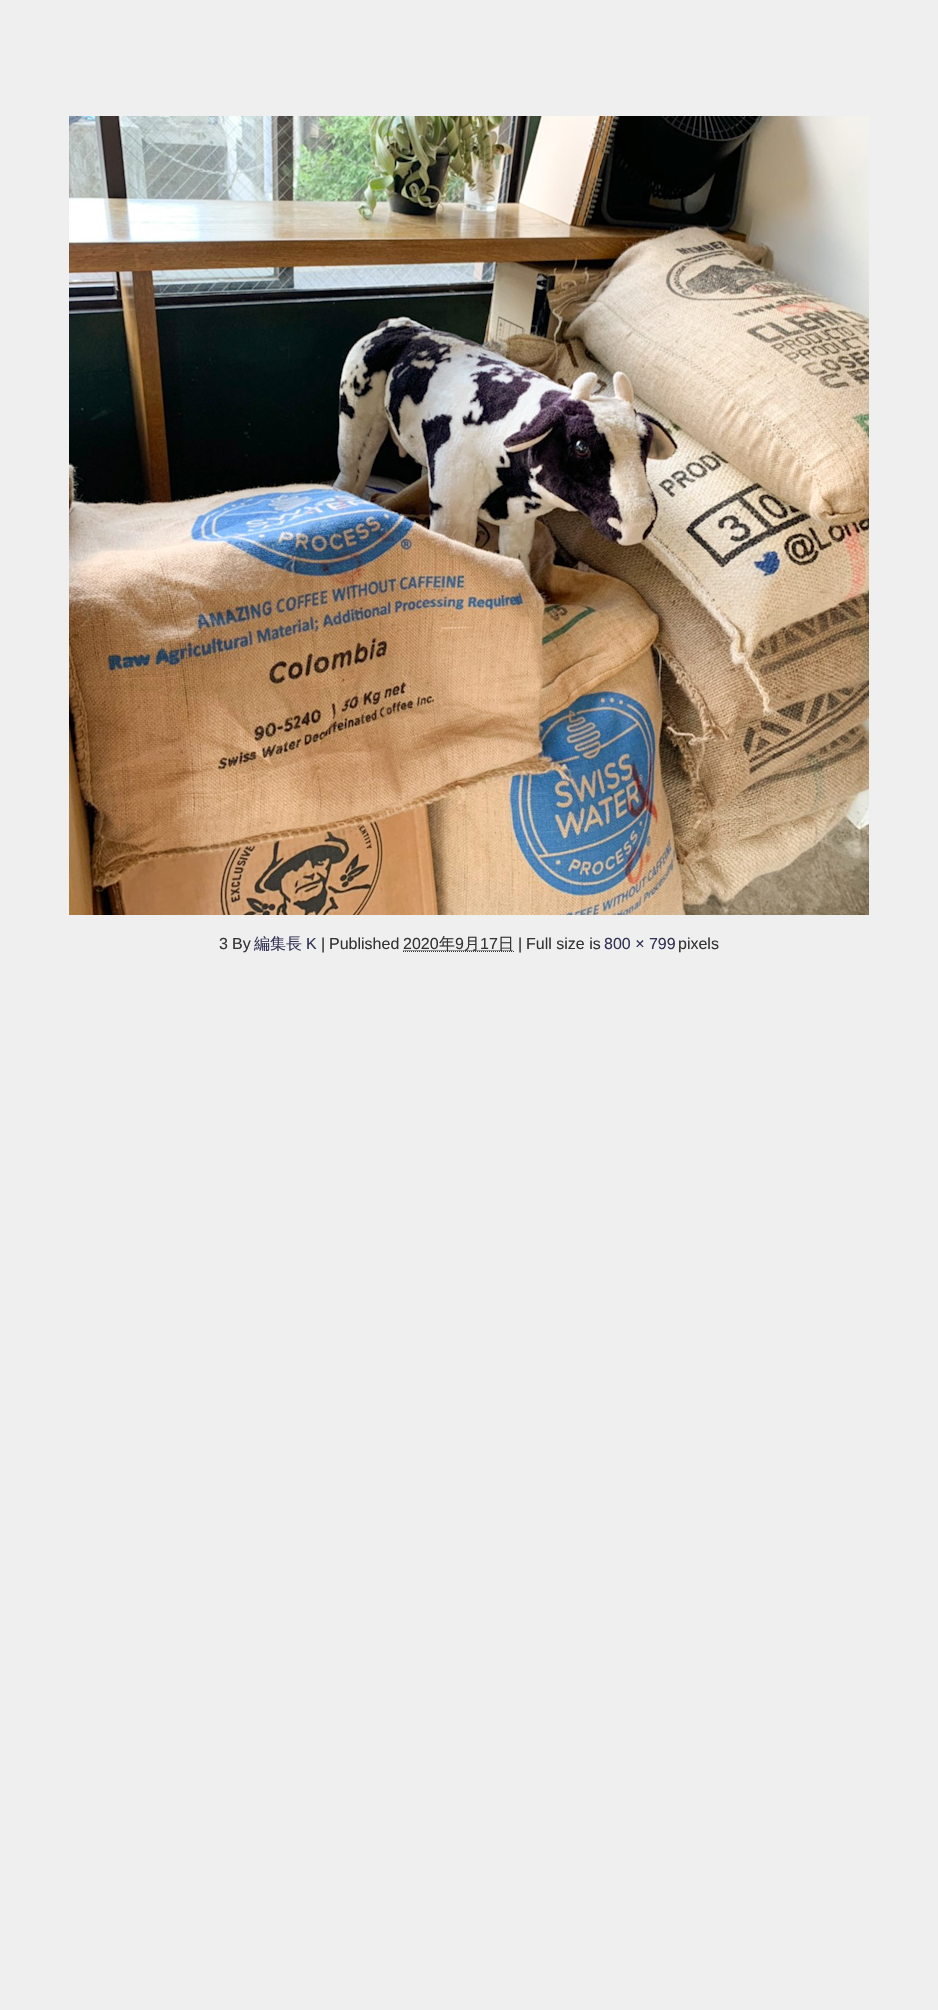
static SkFont makeFont(const char* family, int weight, float size, bool italic = false) {
  SkFontStyle style(weight, SkFontStyle::kNormal_Width,
    italic ? SkFontStyle::kItalic_Slant : SkFontStyle::kUpright_Slant);
  SkFont result(fontMgr->matchFamilyStyle(family, style), size);
  result.setSubpixel(true);
  return result;
}

static void text(SkCanvas* c, const char* s, float x, float y, const SkFont& font, SkColor color) {
  SkPaint ink(SkColor4f::FromColor(color));
  ink.setAntiAlias(true);
  c->drawString(s, x, y, font, ink);
}

static void picture(SkCanvas* c, const char* path, float l, float t, float r, float b) {
  auto image = SkImages::DeferredFromEncodedData(SkData::MakeFromFileName(path));
  c->drawImageRect(image, SkRect::MakeLTRB(l, t, r, b), SkSamplingOptions());
}

void draw(SkCanvas* c) {
  SkPaint paint;
  paint.setAntiAlias(true);
  c->clear(0xffefefef);
  picture(c, "img_01.png", 69, 116, 869, 915);
  SkFont face1 = makeFont("Liberation Sans", 400, 16);
  text(c, "3", 219, 949, face1, 0xff333333);
  text(c, "By", 232, 949, face1, 0xff333333);
  SkFont face2 = makeFont("WenQuanYi Zen Hei", 500, 16);
  text(c, "編集長", 254, 949, face2, 0xff333355);
  text(c, "K", 306, 949, face1, 0xff333355);
  text(c, "|", 321, 949, face1, 0xff333333);
  text(c, "Published", 329, 949, face1, 0xff333333);
  text(c, "2020", 403, 949, face1, 0xff333333);
  paint.setStyle(SkPaint::kStroke_Style);
  paint.setStrokeWidth(1);
  paint.setColor(0xff333333);
  paint.setPathEffect(SkDashPathEffect::Make({{1, 1}}, 0));
  c->drawPath(SkPathBuilder().moveTo(403.5f, 950.5f).lineTo(513.5f, 950.5f).detach(), paint);
  paint.setPathEffect(nullptr);
  text(c, "年", 439, 949, face2, 0xff333333);
  text(c, "9", 455, 949, face1, 0xff333333);
  paint.setPathEffect(SkDashPathEffect::Make({{1, 1}}, 0));
  c->drawPath(SkPathBuilder().moveTo(403, 951.5f).lineTo(514, 951.5f).detach(), paint);
  paint.setPathEffect(nullptr);
  text(c, "月", 464, 949, face2, 0xff333333);
  text(c, "17", 480, 949, face1, 0xff333333);
  text(c, "日", 498, 949, face2, 0xff333333);
  text(c, "|", 518, 949, face1, 0xff333333);
  text(c, "Full size is", 526, 949, face1, 0xff333333);
  text(c, "800 × 799", 604, 949, face1, 0xff333355);
  text(c, "pixels", 678, 949, face1, 0xff333333);
}
